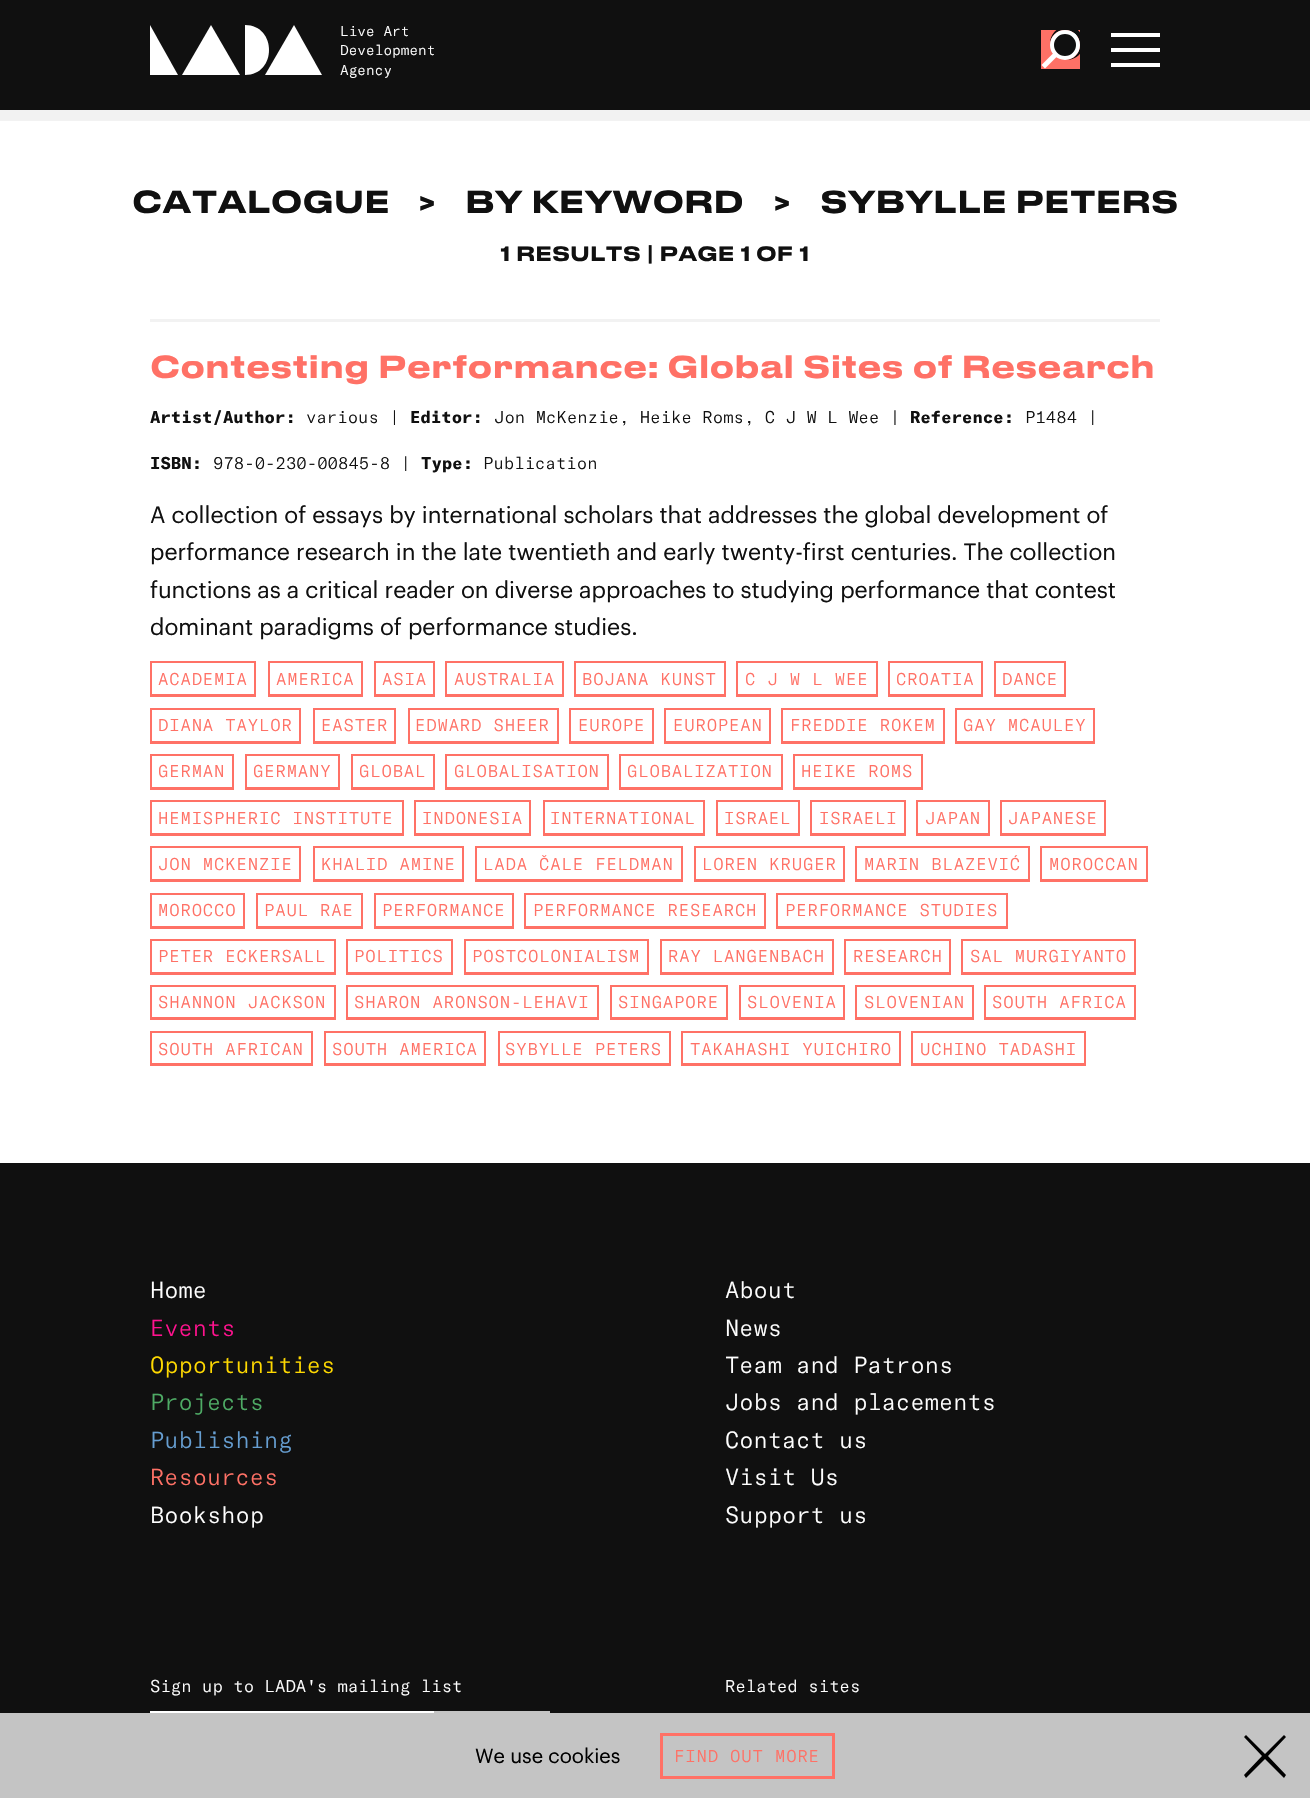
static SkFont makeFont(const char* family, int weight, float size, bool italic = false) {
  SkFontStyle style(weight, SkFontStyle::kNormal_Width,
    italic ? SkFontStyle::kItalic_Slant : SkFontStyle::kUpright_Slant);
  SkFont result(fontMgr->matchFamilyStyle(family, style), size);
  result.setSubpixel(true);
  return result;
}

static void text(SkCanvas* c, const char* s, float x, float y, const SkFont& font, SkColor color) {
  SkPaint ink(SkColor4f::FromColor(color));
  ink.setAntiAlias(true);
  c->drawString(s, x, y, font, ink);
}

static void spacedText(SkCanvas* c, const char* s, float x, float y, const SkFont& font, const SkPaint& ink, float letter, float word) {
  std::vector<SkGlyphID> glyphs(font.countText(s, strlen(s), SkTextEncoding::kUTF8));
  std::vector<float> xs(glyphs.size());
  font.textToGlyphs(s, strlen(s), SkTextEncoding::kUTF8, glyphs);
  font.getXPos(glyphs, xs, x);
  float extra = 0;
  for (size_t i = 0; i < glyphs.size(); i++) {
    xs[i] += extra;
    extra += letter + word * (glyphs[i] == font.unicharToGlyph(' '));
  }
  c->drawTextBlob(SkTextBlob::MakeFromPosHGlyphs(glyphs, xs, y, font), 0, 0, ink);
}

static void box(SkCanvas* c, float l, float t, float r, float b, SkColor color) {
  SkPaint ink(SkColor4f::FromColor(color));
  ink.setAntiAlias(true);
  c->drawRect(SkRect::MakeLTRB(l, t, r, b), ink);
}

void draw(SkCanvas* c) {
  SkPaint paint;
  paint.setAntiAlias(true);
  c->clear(0xffffffff);
  box(c, 0, 0, 1310, 110, 0xff101010);
  paint.setColor(0xffffffff);
  c->drawPath(SkPathBuilder().moveTo(265, 75).lineTo(294, 25).lineTo(322, 75).close().detach(), paint);
  c->drawPath(SkPathBuilder().moveTo(182, 75).lineTo(211, 25).lineTo(240, 75).close().detach(), paint);
  c->drawPath(SkPathBuilder().moveTo(150, 25).lineTo(150, 75).lineTo(178, 75).close().detach(), paint);
  c->drawPath(SkPathBuilder().moveTo(245, 25).lineTo(245, 75).cubicTo(277, 75, 277, 25, 245, 25).detach(), paint);
  SkFont face1 = makeFont("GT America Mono", 300, 14);
  text(c, "Live Art", 340, 36, face1, 0xffffffff);
  text(c, "Development", 340, 55, face1, 0xffffffff);
  text(c, "Agency", 340, 75, face1, 0xffffffff);
  box(c, 1041, 30, 1080, 69, 0xffff7166);
  c->drawPath(SkPathBuilder().moveTo(1041.5f, 65).lineTo(1076, 30.5f).lineTo(1079.5f, 34).lineTo(1045, 68.5f).close().detach(), paint);
  paint.setColor(0xff101010);
  c->drawPath(SkPathBuilder().moveTo(1067, 26).cubicTo(1057.5f, 26, 1049.5f, 34.5f, 1050, 44).cubicTo(1050.5f, 36, 1057, 30, 1065, 30).cubicTo(1073.5f, 30, 1080, 36.5f, 1080, 45).cubicTo(1080, 53, 1074, 59.5f, 1066, 60).cubicTo(1069.5f, 60, 1073.5f, 59, 1076.5f, 57).cubicTo(1090.5f, 48, 1083.5f, 26, 1067, 26).close().detach(), paint);
  c->drawCircle(1065, 45, 13, paint);
  paint.setStyle(SkPaint::kStroke_Style);
  paint.setStrokeWidth(4);
  paint.setColor(0xffffffff);
  c->drawCircle(1065, 45, 13, paint);
  box(c, 1111, 33, 1160, 37, 0xffffffff);
  box(c, 1111, 48, 1160, 52, 0xffffffff);
  box(c, 1111, 63, 1160, 67, 0xffffffff);
  box(c, 0, 110, 1310, 121, 0xfff2f2f2);
  SkFont face2 = makeFont("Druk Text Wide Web", 500, 30);
  text(c, "CATALOGUE", 132, 213, face2, 0xff101010);
  text(c, ">", 418, 213, face2, 0xff101010);
  text(c, "BY KEYWORD", 465, 213, face2, 0xff101010);
  text(c, ">", 773, 213, face2, 0xff101010);
  text(c, "SYBYLLE PETERS", 820, 213, face2, 0xff101010);
  SkFont face3 = makeFont("Druk Text Wide Web", 500, 19.6f);
  text(c, "1 RESULTS | PAGE 1 OF 1", 500, 261, face3, 0xff101010);
  box(c, 150, 319, 1160, 322, 0xfff2f2f2);
  text(c, "Contesting Performance: Global Sites of Research", 150, 378, face2, 0xffff7166);
  SkFont face4 = makeFont("GT America Mono", 700, 16.8f);
  text(c, "Artist/Author:", 150, 423, face4, 0xff101010);
  SkFont face5 = makeFont("GT America Mono", 300, 16.8f);
  text(c, "various |", 306, 423, face5, 0xff101010);
  text(c, "Editor:", 410, 423, face4, 0xff101010);
  text(c, "Jon McKenzie, Heike Roms, C J W L Wee |", 494, 423, face5, 0xff101010);
  text(c, "Reference:", 910, 423, face4, 0xff101010);
  text(c, "P1484 |", 1025, 423, face5, 0xff101010);
  text(c, "ISBN:", 150, 469, face4, 0xff101010);
  text(c, "978-0-230-00845-8 |", 213, 469, face5, 0xff101010);
  text(c, "Type:", 421, 469, face4, 0xff101010);
  text(c, "Publication", 483, 469, face5, 0xff101010);
  SkFont face6 = makeFont("Graphik", 400, 23);
  text(c, "A collection of essays by international scholars that addresses the global development of", 150, 523, face6, 0xff101010);
  text(c, "performance research in the late twentieth and early twenty-first centuries. The collection", 150, 560, face6, 0xff101010);
  text(c, "functions as a critical reader on diverse approaches to studying performance that contest", 150, 598, face6, 0xff101010);
  text(c, "dominant paradigms of performance studies.", 150, 635, face6, 0xff101010);
  paint.setStrokeWidth(2);
  paint.setColor(0xffff7166);
  c->drawRect(SkRect::MakeLTRB(151, 662, 255, 695), paint);
  box(c, 150, 696, 256, 697, 0xffff7166);
  paint.setStyle(SkPaint::kFill_Style);
  spacedText(c, "ACADEMIA", 158, 685, face5, paint, 0.8f, 0);
  paint.setStyle(SkPaint::kStroke_Style);
  c->drawRect(SkRect::MakeLTRB(269, 662, 362, 695), paint);
  box(c, 268, 696, 363, 697, 0xffff7166);
  paint.setStyle(SkPaint::kFill_Style);
  spacedText(c, "AMERICA", 276, 685, face5, paint, 0.8f, 0);
  paint.setStyle(SkPaint::kStroke_Style);
  c->drawRect(SkRect::MakeLTRB(375, 662, 434, 695), paint);
  box(c, 374, 696, 435, 697, 0xffff7166);
  paint.setStyle(SkPaint::kFill_Style);
  spacedText(c, "ASIA", 382, 685, face5, paint, 0.8f, 0);
  paint.setStyle(SkPaint::kStroke_Style);
  c->drawRect(SkRect::MakeLTRB(446, 662, 563, 695), paint);
  box(c, 445, 696, 564, 697, 0xffff7166);
  paint.setStyle(SkPaint::kFill_Style);
  spacedText(c, "AUSTRALIA", 454, 685, face5, paint, 0.8f, 0);
  paint.setStyle(SkPaint::kStroke_Style);
  c->drawRect(SkRect::MakeLTRB(575, 662, 725, 695), paint);
  box(c, 574, 696, 726, 697, 0xffff7166);
  paint.setStyle(SkPaint::kFill_Style);
  spacedText(c, "BOJANA KUNST", 582, 685, face5, paint, 0.8f, 0);
  paint.setStyle(SkPaint::kStroke_Style);
  c->drawRect(SkRect::MakeLTRB(737, 662, 877, 695), paint);
  box(c, 736, 696, 878, 697, 0xffff7166);
  paint.setStyle(SkPaint::kFill_Style);
  spacedText(c, "C J W L WEE", 745, 685, face5, paint, 0.8f, 0);
  paint.setStyle(SkPaint::kStroke_Style);
  c->drawRect(SkRect::MakeLTRB(889, 662, 982, 695), paint);
  box(c, 888, 696, 983, 697, 0xffff7166);
  paint.setStyle(SkPaint::kFill_Style);
  spacedText(c, "CROATIA", 896, 685, face5, paint, 0.8f, 0);
  paint.setStyle(SkPaint::kStroke_Style);
  c->drawRect(SkRect::MakeLTRB(995, 662, 1065, 695), paint);
  box(c, 994, 696, 1066, 697, 0xffff7166);
  paint.setStyle(SkPaint::kFill_Style);
  spacedText(c, "DANCE", 1002, 685, face5, paint, 0.8f, 0);
  paint.setStyle(SkPaint::kStroke_Style);
  c->drawRect(SkRect::MakeLTRB(151, 709, 300, 742), paint);
  box(c, 150, 743, 301, 744, 0xffff7166);
  paint.setStyle(SkPaint::kFill_Style);
  spacedText(c, "DIANA TAYLOR", 158, 731, face5, paint, 0.8f, 0);
  paint.setStyle(SkPaint::kStroke_Style);
  c->drawRect(SkRect::MakeLTRB(314, 709, 395, 742), paint);
  box(c, 313, 743, 396, 744, 0xffff7166);
  paint.setStyle(SkPaint::kFill_Style);
  spacedText(c, "EASTER", 321, 731, face5, paint, 0.8f, 0);
  paint.setStyle(SkPaint::kStroke_Style);
  c->drawRect(SkRect::MakeLTRB(409, 709, 558, 742), paint);
  box(c, 408, 743, 559, 744, 0xffff7166);
  paint.setStyle(SkPaint::kFill_Style);
  spacedText(c, "EDWARD SHEER", 415, 731, face5, paint, 0.8f, 0);
  paint.setStyle(SkPaint::kStroke_Style);
  c->drawRect(SkRect::MakeLTRB(570, 709, 653, 742), paint);
  box(c, 569, 743, 654, 744, 0xffff7166);
  paint.setStyle(SkPaint::kFill_Style);
  spacedText(c, "EUROPE", 578, 731, face5, paint, 0.8f, 0);
  paint.setStyle(SkPaint::kStroke_Style);
  c->drawRect(SkRect::MakeLTRB(665, 709, 770, 742), paint);
  box(c, 664, 743, 771, 744, 0xffff7166);
  paint.setStyle(SkPaint::kFill_Style);
  spacedText(c, "EUROPEAN", 673, 731, face5, paint, 0.8f, 0);
  paint.setStyle(SkPaint::kStroke_Style);
  c->drawRect(SkRect::MakeLTRB(782, 709, 944, 742), paint);
  box(c, 781, 743, 945, 744, 0xffff7166);
  paint.setStyle(SkPaint::kFill_Style);
  spacedText(c, "FREDDIE ROKEM", 790, 731, face5, paint, 0.8f, 0);
  paint.setStyle(SkPaint::kStroke_Style);
  c->drawRect(SkRect::MakeLTRB(956, 709, 1094, 742), paint);
  box(c, 955, 743, 1095, 744, 0xffff7166);
  paint.setStyle(SkPaint::kFill_Style);
  spacedText(c, "GAY MCAULEY", 963, 731, face5, paint, 0.8f, 0);
  paint.setStyle(SkPaint::kStroke_Style);
  c->drawRect(SkRect::MakeLTRB(151, 755, 233, 788), paint);
  box(c, 150, 789, 234, 790, 0xffff7166);
  paint.setStyle(SkPaint::kFill_Style);
  spacedText(c, "GERMAN", 158, 777, face5, paint, 0.8f, 0);
  paint.setStyle(SkPaint::kStroke_Style);
  c->drawRect(SkRect::MakeLTRB(246, 755, 339, 788), paint);
  box(c, 245, 789, 340, 790, 0xffff7166);
  paint.setStyle(SkPaint::kFill_Style);
  spacedText(c, "GERMANY", 253, 777, face5, paint, 0.8f, 0);
  paint.setStyle(SkPaint::kStroke_Style);
  c->drawRect(SkRect::MakeLTRB(352, 755, 434, 788), paint);
  box(c, 351, 789, 435, 790, 0xffff7166);
  paint.setStyle(SkPaint::kFill_Style);
  spacedText(c, "GLOBAL", 359, 777, face5, paint, 0.8f, 0);
  paint.setStyle(SkPaint::kStroke_Style);
  c->drawRect(SkRect::MakeLTRB(446, 755, 608, 788), paint);
  box(c, 445, 789, 609, 790, 0xffff7166);
  paint.setStyle(SkPaint::kFill_Style);
  spacedText(c, "GLOBALISATION", 454, 777, face5, paint, 0.8f, 0);
  paint.setStyle(SkPaint::kStroke_Style);
  c->drawRect(SkRect::MakeLTRB(620, 755, 782, 788), paint);
  box(c, 619, 789, 783, 790, 0xffff7166);
  paint.setStyle(SkPaint::kFill_Style);
  spacedText(c, "GLOBALIZATION", 627, 777, face5, paint, 0.8f, 0);
  paint.setStyle(SkPaint::kStroke_Style);
  c->drawRect(SkRect::MakeLTRB(794, 755, 922, 788), paint);
  box(c, 793, 789, 923, 790, 0xffff7166);
  paint.setStyle(SkPaint::kFill_Style);
  spacedText(c, "HEIKE ROMS", 801, 777, face5, paint, 0.8f, 0);
  paint.setStyle(SkPaint::kStroke_Style);
  c->drawRect(SkRect::MakeLTRB(151, 801, 403, 834), paint);
  box(c, 150, 835, 404, 836, 0xffff7166);
  paint.setStyle(SkPaint::kFill_Style);
  spacedText(c, "HEMISPHERIC INSTITUTE", 158, 824, face5, paint, 0.8f, 0);
  paint.setStyle(SkPaint::kStroke_Style);
  c->drawRect(SkRect::MakeLTRB(415, 801, 530, 834), paint);
  box(c, 414, 835, 531, 836, 0xffff7166);
  paint.setStyle(SkPaint::kFill_Style);
  spacedText(c, "INDONESIA", 422, 824, face5, paint, 0.8f, 0);
  paint.setStyle(SkPaint::kStroke_Style);
  c->drawRect(SkRect::MakeLTRB(544, 801, 704, 834), paint);
  box(c, 543, 835, 705, 836, 0xffff7166);
  paint.setStyle(SkPaint::kFill_Style);
  spacedText(c, "INTERNATIONAL", 550, 824, face5, paint, 0.8f, 0);
  paint.setStyle(SkPaint::kStroke_Style);
  c->drawRect(SkRect::MakeLTRB(717, 801, 799, 834), paint);
  box(c, 716, 835, 800, 836, 0xffff7166);
  paint.setStyle(SkPaint::kFill_Style);
  spacedText(c, "ISRAEL", 724, 824, face5, paint, 0.8f, 0);
  paint.setStyle(SkPaint::kStroke_Style);
  c->drawRect(SkRect::MakeLTRB(811, 801, 905, 834), paint);
  box(c, 810, 835, 906, 836, 0xffff7166);
  paint.setStyle(SkPaint::kFill_Style);
  spacedText(c, "ISRAELI", 819, 824, face5, paint, 0.8f, 0);
  paint.setStyle(SkPaint::kStroke_Style);
  c->drawRect(SkRect::MakeLTRB(917, 801, 989, 834), paint);
  box(c, 916, 835, 990, 836, 0xffff7166);
  paint.setStyle(SkPaint::kFill_Style);
  spacedText(c, "JAPAN", 925, 824, face5, paint, 0.8f, 0);
  paint.setStyle(SkPaint::kStroke_Style);
  c->drawRect(SkRect::MakeLTRB(1001, 801, 1105, 834), paint);
  box(c, 1000, 835, 1106, 836, 0xffff7166);
  paint.setStyle(SkPaint::kFill_Style);
  spacedText(c, "JAPANESE", 1008, 824, face5, paint, 0.8f, 0);
  paint.setStyle(SkPaint::kStroke_Style);
  c->drawRect(SkRect::MakeLTRB(151, 847, 300, 880), paint);
  box(c, 150, 881, 301, 882, 0xffff7166);
  paint.setStyle(SkPaint::kFill_Style);
  spacedText(c, "JON MCKENZIE", 158, 870, face5, paint, 0.8f, 0);
  paint.setStyle(SkPaint::kStroke_Style);
  c->drawRect(SkRect::MakeLTRB(314, 847, 463, 880), paint);
  box(c, 313, 881, 464, 882, 0xffff7166);
  paint.setStyle(SkPaint::kFill_Style);
  spacedText(c, "KHALID AMINE", 321, 870, face5, paint, 0.8f, 0);
  paint.setStyle(SkPaint::kStroke_Style);
  c->drawRect(SkRect::MakeLTRB(476, 847, 682, 880), paint);
  box(c, 475, 881, 683, 882, 0xffff7166);
  paint.setStyle(SkPaint::kFill_Style);
  spacedText(c, "LADA ČALE FELDMAN", 483, 870, face5, paint, 0.8f, 0);
  paint.setStyle(SkPaint::kStroke_Style);
  c->drawRect(SkRect::MakeLTRB(695, 847, 844, 880), paint);
  box(c, 694, 881, 845, 882, 0xffff7166);
  paint.setStyle(SkPaint::kFill_Style);
  spacedText(c, "LOREN KRUGER", 702, 870, face5, paint, 0.8f, 0);
  paint.setStyle(SkPaint::kStroke_Style);
  c->drawRect(SkRect::MakeLTRB(856, 847, 1029, 880), paint);
  box(c, 855, 881, 1030, 882, 0xffff7166);
  paint.setStyle(SkPaint::kFill_Style);
  spacedText(c, "MARIN BLAZEVIĆ", 864, 870, face5, paint, 0.8f, 0);
  paint.setStyle(SkPaint::kStroke_Style);
  c->drawRect(SkRect::MakeLTRB(1041, 847, 1147, 880), paint);
  box(c, 1040, 881, 1148, 882, 0xffff7166);
  paint.setStyle(SkPaint::kFill_Style);
  spacedText(c, "MOROCCAN", 1049, 870, face5, paint, 0.8f, 0);
  paint.setStyle(SkPaint::kStroke_Style);
  c->drawRect(SkRect::MakeLTRB(151, 894, 244, 927), paint);
  box(c, 150, 928, 245, 929, 0xffff7166);
  paint.setStyle(SkPaint::kFill_Style);
  spacedText(c, "MOROCCO", 158, 916, face5, paint, 0.8f, 0);
  paint.setStyle(SkPaint::kStroke_Style);
  c->drawRect(SkRect::MakeLTRB(257, 894, 362, 927), paint);
  box(c, 256, 928, 363, 929, 0xffff7166);
  paint.setStyle(SkPaint::kFill_Style);
  spacedText(c, "PAUL RAE", 264, 916, face5, paint, 0.8f, 0);
  paint.setStyle(SkPaint::kStroke_Style);
  c->drawRect(SkRect::MakeLTRB(375, 894, 513, 927), paint);
  box(c, 374, 928, 514, 929, 0xffff7166);
  paint.setStyle(SkPaint::kFill_Style);
  spacedText(c, "PERFORMANCE", 382, 916, face5, paint, 0.8f, 0);
  paint.setStyle(SkPaint::kStroke_Style);
  c->drawRect(SkRect::MakeLTRB(525, 894, 765, 927), paint);
  box(c, 524, 928, 766, 929, 0xffff7166);
  paint.setStyle(SkPaint::kFill_Style);
  spacedText(c, "PERFORMANCE RESEARCH", 533, 916, face5, paint, 0.8f, 0);
  paint.setStyle(SkPaint::kStroke_Style);
  c->drawRect(SkRect::MakeLTRB(777, 894, 1007, 927), paint);
  box(c, 776, 928, 1008, 929, 0xffff7166);
  paint.setStyle(SkPaint::kFill_Style);
  spacedText(c, "PERFORMANCE STUDIES", 785, 916, face5, paint, 0.8f, 0);
  paint.setStyle(SkPaint::kStroke_Style);
  c->drawRect(SkRect::MakeLTRB(151, 940, 335, 973), paint);
  box(c, 150, 974, 336, 975, 0xffff7166);
  paint.setStyle(SkPaint::kFill_Style);
  spacedText(c, "PETER ECKERSALL", 158, 962, face5, paint, 0.8f, 0);
  paint.setStyle(SkPaint::kStroke_Style);
  c->drawRect(SkRect::MakeLTRB(347, 940, 452, 973), paint);
  box(c, 346, 974, 453, 975, 0xffff7166);
  paint.setStyle(SkPaint::kFill_Style);
  spacedText(c, "POLITICS", 354, 962, face5, paint, 0.8f, 0);
  paint.setStyle(SkPaint::kStroke_Style);
  c->drawRect(SkRect::MakeLTRB(465, 940, 648, 973), paint);
  box(c, 464, 974, 649, 975, 0xffff7166);
  paint.setStyle(SkPaint::kFill_Style);
  spacedText(c, "POSTCOLONIALISM", 472, 962, face5, paint, 0.8f, 0);
  paint.setStyle(SkPaint::kStroke_Style);
  c->drawRect(SkRect::MakeLTRB(661, 940, 833, 973), paint);
  box(c, 660, 974, 834, 975, 0xffff7166);
  paint.setStyle(SkPaint::kFill_Style);
  spacedText(c, "RAY LANGENBACH", 668, 962, face5, paint, 0.8f, 0);
  paint.setStyle(SkPaint::kStroke_Style);
  c->drawRect(SkRect::MakeLTRB(845, 940, 950, 973), paint);
  box(c, 844, 974, 951, 975, 0xffff7166);
  paint.setStyle(SkPaint::kFill_Style);
  spacedText(c, "RESEARCH", 853, 962, face5, paint, 0.8f, 0);
  paint.setStyle(SkPaint::kStroke_Style);
  c->drawRect(SkRect::MakeLTRB(962, 940, 1135, 973), paint);
  box(c, 961, 974, 1136, 975, 0xffff7166);
  paint.setStyle(SkPaint::kFill_Style);
  spacedText(c, "SAL MURGIYANTO", 970, 962, face5, paint, 0.8f, 0);
  paint.setStyle(SkPaint::kStroke_Style);
  c->drawRect(SkRect::MakeLTRB(151, 986, 335, 1018), paint);
  box(c, 150, 1019, 336, 1020, 0xffff7166);
  paint.setStyle(SkPaint::kFill_Style);
  spacedText(c, "SHANNON JACKSON", 158, 1008, face5, paint, 0.8f, 0);
  paint.setStyle(SkPaint::kStroke_Style);
  c->drawRect(SkRect::MakeLTRB(347, 986, 598, 1018), paint);
  box(c, 346, 1019, 599, 1020, 0xffff7166);
  paint.setStyle(SkPaint::kFill_Style);
  spacedText(c, "SHARON ARONSON-LEHAVI", 354, 1008, face5, paint, 0.8f, 0);
  paint.setStyle(SkPaint::kStroke_Style);
  c->drawRect(SkRect::MakeLTRB(611, 986, 727, 1018), paint);
  box(c, 610, 1019, 728, 1020, 0xffff7166);
  paint.setStyle(SkPaint::kFill_Style);
  spacedText(c, "SINGAPORE", 618, 1008, face5, paint, 0.8f, 0);
  paint.setStyle(SkPaint::kStroke_Style);
  c->drawRect(SkRect::MakeLTRB(740, 986, 844, 1018), paint);
  box(c, 739, 1019, 845, 1020, 0xffff7166);
  paint.setStyle(SkPaint::kFill_Style);
  spacedText(c, "SLOVENIA", 747, 1008, face5, paint, 0.8f, 0);
  paint.setStyle(SkPaint::kStroke_Style);
  c->drawRect(SkRect::MakeLTRB(856, 986, 973, 1018), paint);
  box(c, 855, 1019, 974, 1020, 0xffff7166);
  paint.setStyle(SkPaint::kFill_Style);
  spacedText(c, "SLOVENIAN", 864, 1008, face5, paint, 0.8f, 0);
  paint.setStyle(SkPaint::kStroke_Style);
  c->drawRect(SkRect::MakeLTRB(985, 986, 1135, 1018), paint);
  box(c, 984, 1019, 1136, 1020, 0xffff7166);
  paint.setStyle(SkPaint::kFill_Style);
  spacedText(c, "SOUTH AFRICA", 992, 1008, face5, paint, 0.8f, 0);
  paint.setStyle(SkPaint::kStroke_Style);
  c->drawRect(SkRect::MakeLTRB(151, 1032, 312, 1064), paint);
  box(c, 150, 1065, 313, 1066, 0xffff7166);
  paint.setStyle(SkPaint::kFill_Style);
  spacedText(c, "SOUTH AFRICAN", 158, 1055, face5, paint, 0.8f, 0);
  paint.setStyle(SkPaint::kStroke_Style);
  c->drawRect(SkRect::MakeLTRB(325, 1032, 485, 1064), paint);
  box(c, 324, 1065, 486, 1066, 0xffff7166);
  paint.setStyle(SkPaint::kFill_Style);
  spacedText(c, "SOUTH AMERICA", 332, 1055, face5, paint, 0.8f, 0);
  paint.setStyle(SkPaint::kStroke_Style);
  c->drawRect(SkRect::MakeLTRB(499, 1032, 670, 1064), paint);
  box(c, 498, 1065, 671, 1066, 0xffff7166);
  paint.setStyle(SkPaint::kFill_Style);
  spacedText(c, "SYBYLLE PETERS", 505, 1055, face5, paint, 0.8f, 0);
  paint.setStyle(SkPaint::kStroke_Style);
  c->drawRect(SkRect::MakeLTRB(682, 1032, 900, 1064), paint);
  box(c, 681, 1065, 901, 1066, 0xffff7166);
  paint.setStyle(SkPaint::kFill_Style);
  spacedText(c, "TAKAHASHI YUICHIRO", 690, 1055, face5, paint, 0.8f, 0);
  paint.setStyle(SkPaint::kStroke_Style);
  c->drawRect(SkRect::MakeLTRB(912, 1032, 1085, 1064), paint);
  box(c, 911, 1065, 1086, 1066, 0xffff7166);
  paint.setStyle(SkPaint::kFill_Style);
  spacedText(c, "UCHINO TADASHI", 920, 1055, face5, paint, 0.8f, 0);
  box(c, 0, 1163, 1310, 1713, 0xff101010);
  SkFont face7 = makeFont("GT America Mono", 300, 23);
  text(c, "Home", 150, 1298, face7, 0xffffffff);
  text(c, "Events", 150, 1336, face7, 0xffff128e);
  text(c, "Opportunities", 150, 1373, face7, 0xffffd900);
  text(c, "Projects", 150, 1410, face7, 0xff4eab65);
  text(c, "Publishing", 150, 1448, face7, 0xff669ed1);
  text(c, "Resources", 150, 1485, face7, 0xffff7166);
  text(c, "Bookshop", 150, 1523, face7, 0xffffffff);
  text(c, "About", 725, 1298, face7, 0xffffffff);
  text(c, "News", 725, 1336, face7, 0xffffffff);
  text(c, "Team and Patrons", 725, 1373, face7, 0xffffffff);
  text(c, "Jobs and placements", 725, 1410, face7, 0xffffffff);
  text(c, "Contact us", 725, 1448, face7, 0xffffffff);
  text(c, "Visit Us", 725, 1485, face7, 0xffffffff);
  text(c, "Support us", 725, 1523, face7, 0xffffffff);
  text(c, "Sign up to LADA's mailing list", 150, 1692, face5, 0xffffffff);
  box(c, 150, 1711, 434, 1713, 0xffffffff);
  box(c, 434, 1711, 550, 1713, 0xffc4c4c4);
  text(c, "Related sites", 725, 1692, face5, 0xffffffff);
  box(c, 0, 1713, 1310, 1798, 0xffc4c4c4);
  SkFont face8 = makeFont("Graphik", 400, 20);
  text(c, "We use cookies", 475, 1763, face8, 0xff000000);
  paint.setStyle(SkPaint::kStroke_Style);
  paint.setStrokeWidth(3);
  c->drawRect(SkRect::MakeLTRB(661.5f, 1734.5f, 833.5f, 1777.5f), paint);
  paint.setStyle(SkPaint::kFill_Style);
  spacedText(c, "FIND OUT MORE", 674, 1762, face5, paint, 0.8f, 0);
  paint.setColor(0xff000000);
  c->drawPath(SkPathBuilder().moveTo(1262, 1756).lineTo(1244, 1737).lineTo(1246, 1735).lineTo(1265, 1754).lineTo(1284, 1735).lineTo(1286, 1737).lineTo(1268, 1756).lineTo(1286, 1775).lineTo(1284, 1778).lineTo(1265, 1759).lineTo(1246, 1778).lineTo(1244, 1775).close().detach(), paint);
}
